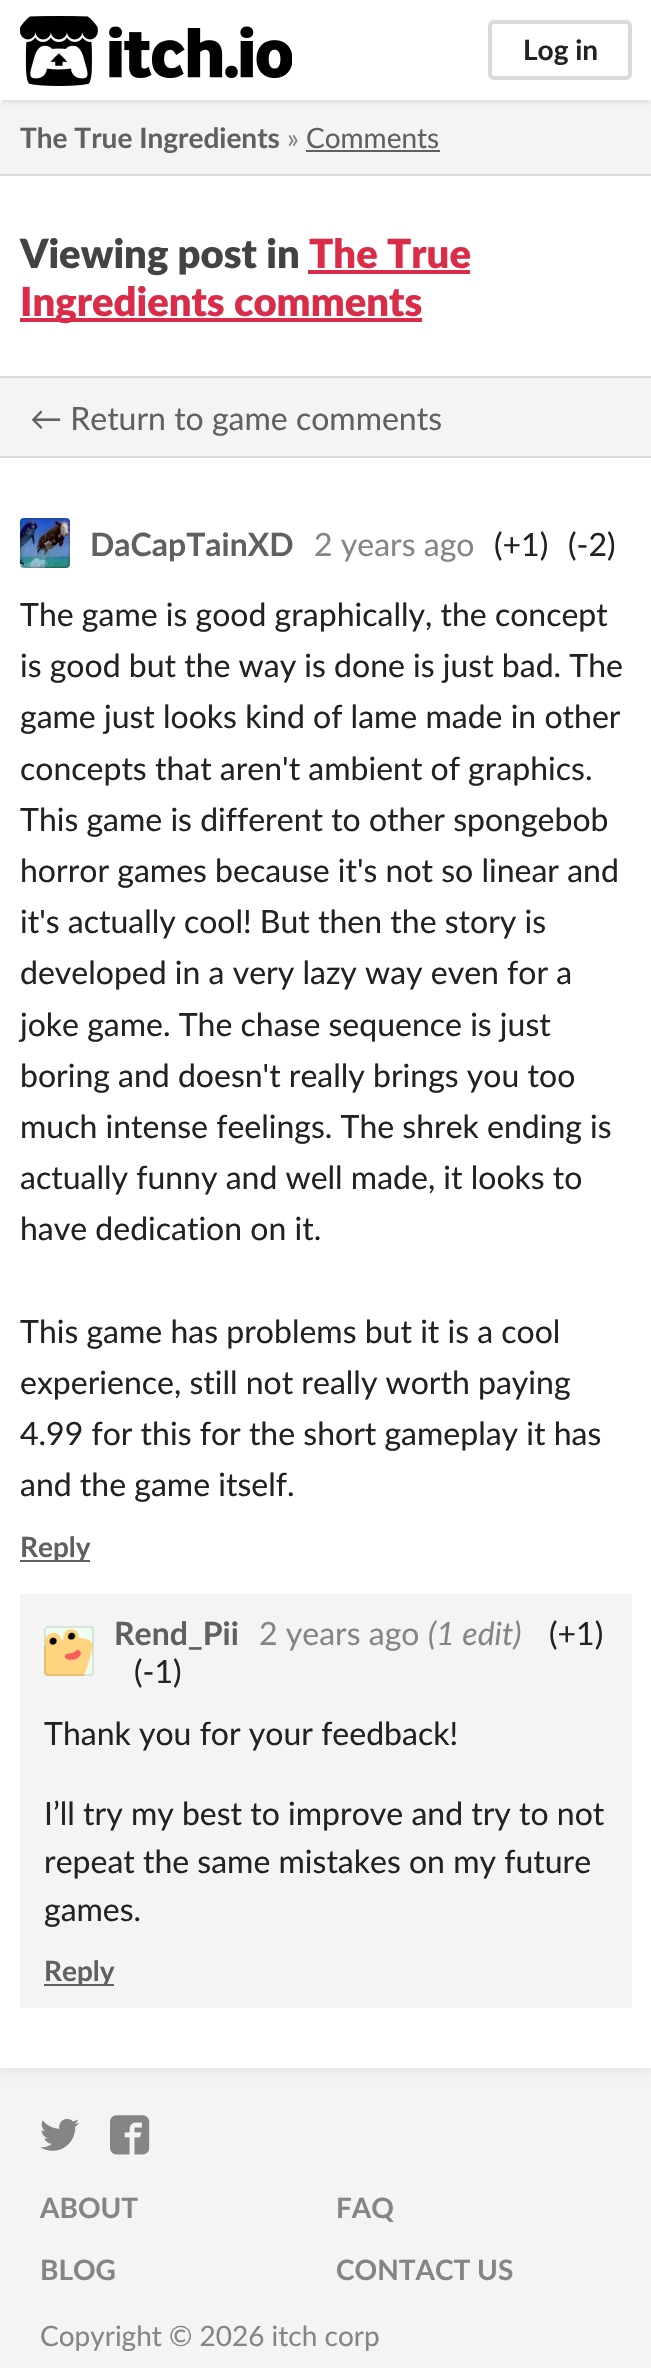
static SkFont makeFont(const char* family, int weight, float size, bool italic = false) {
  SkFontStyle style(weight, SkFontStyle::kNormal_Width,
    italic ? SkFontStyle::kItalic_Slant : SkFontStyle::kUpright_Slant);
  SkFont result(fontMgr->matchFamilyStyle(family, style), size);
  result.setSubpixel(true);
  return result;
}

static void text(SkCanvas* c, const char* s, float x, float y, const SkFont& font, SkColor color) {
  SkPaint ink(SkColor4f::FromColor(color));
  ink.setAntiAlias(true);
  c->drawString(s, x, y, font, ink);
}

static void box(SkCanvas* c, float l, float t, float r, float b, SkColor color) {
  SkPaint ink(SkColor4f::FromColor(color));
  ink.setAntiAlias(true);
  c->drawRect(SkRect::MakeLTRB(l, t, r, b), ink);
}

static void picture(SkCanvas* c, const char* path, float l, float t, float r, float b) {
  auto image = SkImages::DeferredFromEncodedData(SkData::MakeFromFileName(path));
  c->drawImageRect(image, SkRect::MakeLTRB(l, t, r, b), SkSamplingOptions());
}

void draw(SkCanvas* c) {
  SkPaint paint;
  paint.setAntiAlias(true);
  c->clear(0xfff4f4f4);
  paint.setColor(0x0d000000);
  paint.setMaskFilter(SkMaskFilter::MakeBlur(kNormal_SkBlurStyle, 4));
  c->drawRect(SkRect::MakeLTRB(0, 104, 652, 2072), paint);
  paint.setMaskFilter(nullptr);
  box(c, 0, 100, 651, 2068, 0xffffffff);
  paint.setColor(0xfff4f4f4);
  c->drawPath(SkPathBuilder().moveTo(6, 100).lineTo(646, 100).cubicTo(649.5f, 100, 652, 102.5f, 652, 106).lineTo(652, 176).lineTo(0, 176).lineTo(0, 106).cubicTo(0, 102.5f, 2.5f, 100, 6, 100).close().detach(), paint);
  paint.setColor(0x1a000000);
  paint.setMaskFilter(SkMaskFilter::MakeBlur(kNormal_SkBlurStyle, 2));
  c->drawRect(SkRect::MakeLTRB(0, 2, 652, 102), paint);
  paint.setMaskFilter(nullptr);
  box(c, 0, 0, 651, 100, 0xffffffff);
  picture(c, "img_01.png", 20, 16, 292, 86);
  paint.setStyle(SkPaint::kStroke_Style);
  paint.setStrokeWidth(4);
  paint.setColor(0xffdadada);
  c->drawRoundRect(SkRect::MakeLTRB(490, 22, 630, 78), 4, 4, paint);
  SkFont face1 = makeFont("Lato", 700, 28);
  text(c, "Log in", 523, 60, face1, 0xff222222);
  box(c, 0, 174, 651, 176, 0xffdadada);
  text(c, "The True Ingredients", 20, 148, face1, 0xff606060);
  SkFont face2 = makeFont("Lato", 400, 28);
  text(c, "»", 287, 148, face2, 0xff858585);
  text(c, "Comments", 306, 148, face2, 0xff606060);
  box(c, 306, 150, 440, 152, 0xff606060);
  box(c, 0, 376, 651, 378, 0xffdadada);
  SkFont face3 = makeFont("Lato", 900, 40);
  text(c, "Viewing post in", 20, 268, face3, 0xff434343);
  text(c, "The True", 309, 268, face3, 0xffda2c49);
  box(c, 308, 270, 470, 274, 0xffda2c49);
  box(c, 20, 318, 422, 322, 0xffda2c49);
  text(c, "Ingredients comments", 20, 316, face3, 0xffda2c49);
  box(c, 0, 378, 651, 456, 0xfff4f4f4);
  box(c, 0, 456, 651, 458, 0xffdadada);
  SkFont face4 = makeFont("Lato", 400, 32);
  text(c, "← Return to game comments", 30, 430, face4, 0xff606060);
  picture(c, "img_02.png", 20, 518, 70, 568);
  paint.setStrokeWidth(2);
  paint.setColor(0x1a000000);
  c->drawRoundRect(SkRect::MakeLTRB(21, 519, 69, 567), 3, 3, paint);
  SkFont face5 = makeFont("Lato", 700, 32);
  text(c, "DaCapTainXD", 90, 556, face5, 0xff606060);
  text(c, "2 years ago", 314, 556, face4, 0xff858585);
  text(c, "(+1)", 494, 556, face4, 0xff222222);
  text(c, "(-2)", 568, 556, face4, 0xff222222);
  text(c, "The game is good graphically, the concept", 20, 626, face4, 0xff222222);
  text(c, "is good but the way is done is just bad. The", 20, 677, face4, 0xff222222);
  text(c, "game just looks kind of lame made in other", 20, 728, face4, 0xff222222);
  text(c, "concepts that aren't ambient of graphics.", 20, 780, face4, 0xff222222);
  text(c, "This game is different to other spongebob", 20, 831, face4, 0xff222222);
  text(c, "horror games because it's not so linear and", 20, 882, face4, 0xff222222);
  text(c, "it's actually cool! But then the story is", 20, 933, face4, 0xff222222);
  text(c, "developed in a very lazy way even for a", 20, 984, face4, 0xff222222);
  text(c, "joke game. The chase sequence is just", 20, 1036, face4, 0xff222222);
  text(c, "boring and doesn't really brings you too", 20, 1087, face4, 0xff222222);
  text(c, "much intense feelings. The shrek ending is", 20, 1138, face4, 0xff222222);
  text(c, "actually funny and well made, it looks to", 20, 1189, face4, 0xff222222);
  text(c, "have dedication on it.", 20, 1240, face4, 0xff222222);
  text(c, "This game has problems but it is a cool", 20, 1343, face4, 0xff222222);
  text(c, "experience, still not really worth paying", 20, 1394, face4, 0xff222222);
  text(c, "4.99 for this for the short gameplay it has", 20, 1445, face4, 0xff222222);
  text(c, "and the game itself.", 20, 1496, face4, 0xff222222);
  box(c, 20, 1560, 90, 1562, 0xff606060);
  text(c, "Reply", 20, 1557, face1, 0xff606060);
  box(c, 20, 1594, 632, 2008, 0xfff4f4f4);
  picture(c, "img_03.png", 44, 1626, 94, 1676);
  c->drawRoundRect(SkRect::MakeLTRB(45, 1627, 93, 1675), 3, 3, paint);
  text(c, "Rend_Pii", 114, 1645, face5, 0xff606060);
  text(c, "2 years ago", 259, 1645, face4, 0xff858585);
  SkFont face6 = makeFont("Lato", 400, 32, true);
  text(c, "(1 edit)", 428, 1645, face6, 0xff858585);
  text(c, "(+1)", 549, 1645, face4, 0xff222222);
  text(c, "(-1)", 134, 1683, face4, 0xff222222);
  text(c, "Thank you for your feedback!", 44, 1745, face4, 0xff222222);
  text(c, "I’ll try my best to improve and try to not", 44, 1825, face4, 0xff222222);
  text(c, "repeat the same mistakes on my future", 44, 1873, face4, 0xff222222);
  text(c, "games.", 44, 1921, face4, 0xff222222);
  box(c, 44, 1984, 114, 1986, 0xff606060);
  text(c, "Reply", 44, 1981, face1, 0xff606060);
  picture(c, "img_04.png", 40, 2119, 79, 2151);
  picture(c, "img_05.png", 110, 2115, 150, 2155);
  text(c, "ABOUT", 40, 2218, face1, 0xff858585);
  text(c, "FAQ", 336, 2218, face1, 0xff858585);
  text(c, "BLOG", 40, 2280, face1, 0xff858585);
  text(c, "CONTACT US", 336, 2280, face1, 0xff858585);
  text(c, "Copyright © 2026 itch corp", 40, 2346, face2, 0xff858585);
}
